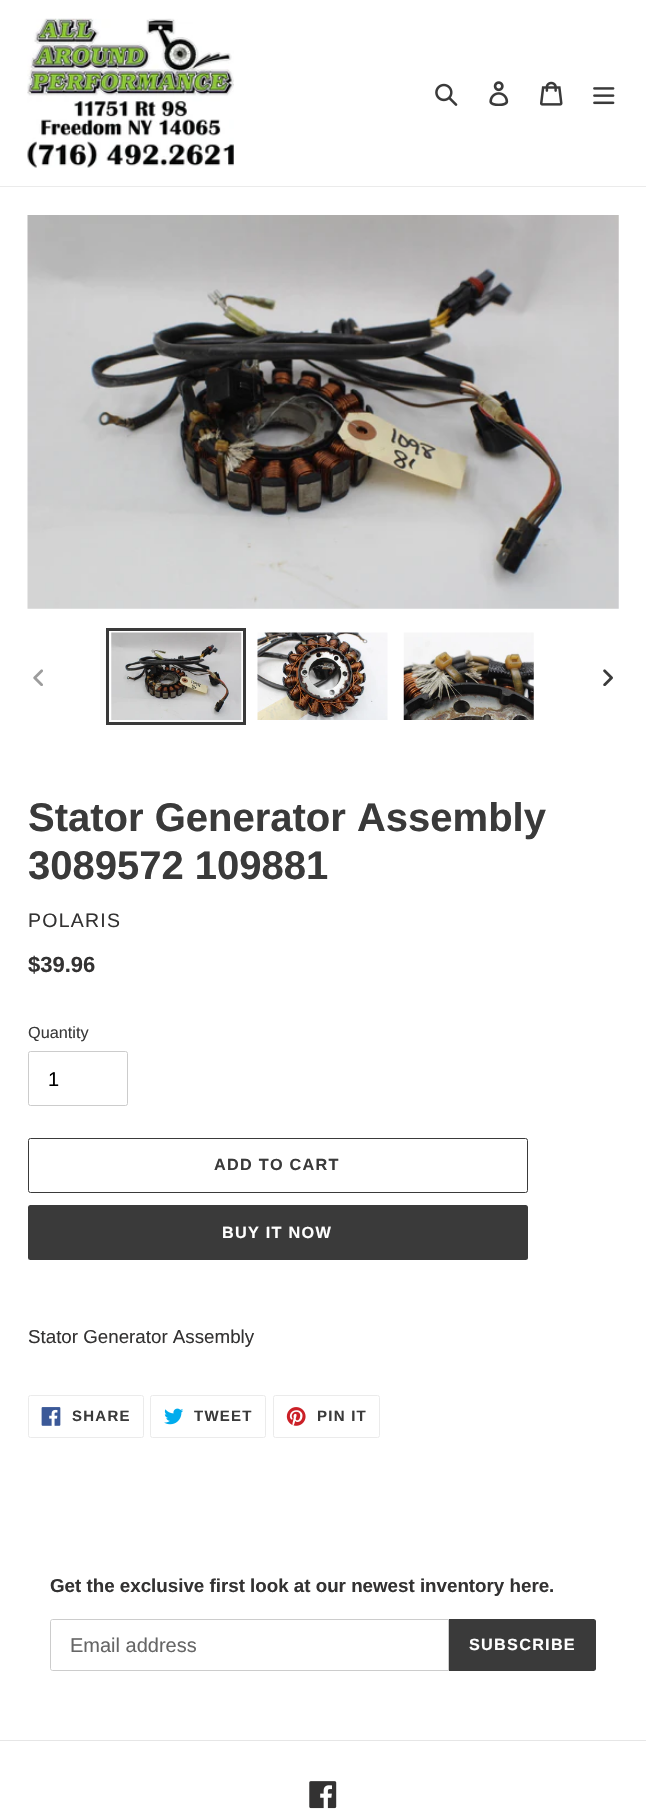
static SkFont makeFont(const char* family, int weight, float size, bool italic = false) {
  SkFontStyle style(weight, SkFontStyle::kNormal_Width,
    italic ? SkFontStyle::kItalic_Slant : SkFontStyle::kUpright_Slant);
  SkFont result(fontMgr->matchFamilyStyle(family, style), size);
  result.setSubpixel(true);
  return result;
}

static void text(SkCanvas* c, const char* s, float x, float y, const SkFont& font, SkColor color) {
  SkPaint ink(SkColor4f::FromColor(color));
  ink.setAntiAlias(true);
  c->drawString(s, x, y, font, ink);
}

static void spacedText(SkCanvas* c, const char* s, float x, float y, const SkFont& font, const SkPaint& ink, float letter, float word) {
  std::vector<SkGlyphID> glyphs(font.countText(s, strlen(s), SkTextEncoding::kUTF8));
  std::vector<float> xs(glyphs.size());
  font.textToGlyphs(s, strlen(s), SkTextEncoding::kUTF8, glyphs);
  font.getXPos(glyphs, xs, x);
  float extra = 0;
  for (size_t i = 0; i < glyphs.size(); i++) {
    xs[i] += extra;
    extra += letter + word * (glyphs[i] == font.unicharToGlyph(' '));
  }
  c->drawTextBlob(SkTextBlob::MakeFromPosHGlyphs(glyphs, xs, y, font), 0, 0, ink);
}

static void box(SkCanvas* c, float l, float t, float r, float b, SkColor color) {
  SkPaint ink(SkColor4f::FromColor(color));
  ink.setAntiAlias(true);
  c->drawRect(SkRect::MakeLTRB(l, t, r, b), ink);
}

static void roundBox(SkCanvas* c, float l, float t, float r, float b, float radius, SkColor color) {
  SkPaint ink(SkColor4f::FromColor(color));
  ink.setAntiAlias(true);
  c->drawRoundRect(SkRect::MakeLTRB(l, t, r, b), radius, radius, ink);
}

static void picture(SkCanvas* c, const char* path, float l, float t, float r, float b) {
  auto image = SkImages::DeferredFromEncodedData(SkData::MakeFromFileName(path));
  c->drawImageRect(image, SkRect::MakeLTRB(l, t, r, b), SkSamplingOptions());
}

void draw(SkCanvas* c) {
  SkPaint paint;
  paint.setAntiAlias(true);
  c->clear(0xffffffff);
  box(c, 0, 186, 646, 187, 0xffebebeb);
  picture(c, "img_01.png", 27, 18, 234, 168);
  picture(c, "img_02.png", 435, 83, 458, 106);
  picture(c, "img_03.png", 489, 81, 509, 106);
  picture(c, "img_04.png", 540, 81, 563, 106);
  picture(c, "img_05.png", 593, 87, 615, 105);
  picture(c, "img_06.png", 27, 215, 619, 609);
  picture(c, "img_07.png", 33, 669, 43, 686);
  paint.setStyle(SkPaint::kStroke_Style);
  paint.setStrokeWidth(3);
  paint.setColor(0xff3a3a3a);
  c->drawRect(SkRect::MakeLTRB(107.5f, 629.5f, 244.5f, 723.5f), paint);
  picture(c, "img_08.png", 111, 632, 242, 720);
  picture(c, "img_09.png", 257, 632, 388, 720);
  picture(c, "img_10.png", 403, 632, 534, 720);
  picture(c, "img_11.png", 603, 669, 613, 686);
  SkFont face1 = makeFont("Liberation Sans", 700, 40);
  text(c, "Stator Generator Assembly", 28, 831, face1, 0xff3a3a3a);
  text(c, "3089572 109881", 28, 879, face1, 0xff3a3a3a);
  SkFont face2 = makeFont("Liberation Sans", 400, 19.5f);
  paint.setStyle(SkPaint::kFill_Style);
  paint.setColor(0xff333232);
  spacedText(c, "POLARIS", 28, 927, face2, paint, 1.25f, 0);
  SkFont face3 = makeFont("Liberation Sans", 700, 22);
  text(c, "$39.96", 28, 972, face3, 0xff333232);
  SkFont face4 = makeFont("Liberation Sans", 400, 16.25f);
  text(c, "Quantity", 28, 1038, face4, 0xff3a3a3a);
  paint.setStyle(SkPaint::kStroke_Style);
  paint.setStrokeWidth(1);
  paint.setColor(0xffcccccc);
  c->drawRoundRect(SkRect::MakeLTRB(28.5f, 1051.5f, 127.5f, 1105.5f), 2, 2, paint);
  SkFont face5 = makeFont("Liberation Sans", 400, 20);
  text(c, "1", 48, 1086, face5, 0xff000000);
  paint.setColor(0xff3a3a3a);
  c->drawRoundRect(SkRect::MakeLTRB(28.5f, 1138.5f, 527.5f, 1192.5f), 2, 2, paint);
  SkFont face6 = makeFont("Liberation Sans", 700, 16.25f);
  paint.setStyle(SkPaint::kFill_Style);
  spacedText(c, "ADD TO CART", 214, 1170, face6, paint, 1.25f, 0);
  roundBox(c, 28, 1205, 528, 1260, 2.5f, 0xff3a3a3a);
  paint.setColor(0xffffffff);
  spacedText(c, "BUY IT NOW", 222, 1238, face6, paint, 1.25f, 0);
  SkFont face7 = makeFont("Liberation Sans", 400, 18.75f);
  text(c, "Stator Generator Assembly", 28, 1343, face7, 0xff333232);
  paint.setStyle(SkPaint::kStroke_Style);
  paint.setColor(0xffebebeb);
  c->drawRoundRect(SkRect::MakeLTRB(28.5f, 1395.5f, 143.5f, 1437.5f), 2, 2, paint);
  picture(c, "img_12.png", 41, 1407, 61, 1426);
  SkFont face8 = makeFont("Liberation Sans", 700, 15);
  paint.setStyle(SkPaint::kFill_Style);
  paint.setColor(0xff3a3a3a);
  spacedText(c, "SHARE", 72, 1421, face8, paint, 1.25f, 0);
  paint.setStyle(SkPaint::kStroke_Style);
  paint.setColor(0xffebebeb);
  c->drawRoundRect(SkRect::MakeLTRB(150.5f, 1395.5f, 265.5f, 1437.5f), 2, 2, paint);
  picture(c, "img_13.png", 164, 1408, 184, 1425);
  paint.setStyle(SkPaint::kFill_Style);
  paint.setColor(0xff3a3a3a);
  spacedText(c, "TWEET", 194, 1421, face8, paint, 1.25f, 0);
  paint.setStyle(SkPaint::kStroke_Style);
  paint.setColor(0xffebebeb);
  c->drawRoundRect(SkRect::MakeLTRB(273.5f, 1395.5f, 379.5f, 1437.5f), 2, 2, paint);
  picture(c, "img_14.png", 286, 1407, 306, 1426);
  paint.setStyle(SkPaint::kFill_Style);
  paint.setColor(0xff3a3a3a);
  spacedText(c, "PIN IT", 317, 1421, face8, paint, 1.25f, 0);
  SkFont face9 = makeFont("Liberation Sans", 700, 18.75f);
  text(c, "Get the exclusive first look at our newest inventory here.", 50, 1592, face9, 0xff333232);
  paint.setStyle(SkPaint::kStroke_Style);
  paint.setColor(0xffcccccc);
  c->drawPath(SkPathBuilder().moveTo(52.5f, 1619.5f).lineTo(448.5f, 1619.5f).lineTo(448.5f, 1670.5f).lineTo(52.5f, 1670.5f).cubicTo(51.5f, 1670.5f, 50.5f, 1669.5f, 50.5f, 1668.5f).lineTo(50.5f, 1621.5f).cubicTo(50.5f, 1620.5f, 51.5f, 1619.5f, 52.5f, 1619.5f).close().detach(), paint);
  text(c, "Email address", 70, 1652, face5, 0xff666666);
  paint.setStyle(SkPaint::kFill_Style);
  paint.setColor(0xff3a3a3a);
  c->drawPath(SkPathBuilder().moveTo(449, 1619).lineTo(593.5f, 1619).cubicTo(595, 1619, 596, 1620, 596, 1621.5f).lineTo(596, 1668.5f).cubicTo(596, 1670, 595, 1671, 593.5f, 1671).lineTo(449, 1671).close().detach(), paint);
  paint.setColor(0xffffffff);
  spacedText(c, "SUBSCRIBE", 469, 1650, face6, paint, 1.25f, 0);
  box(c, 0, 1740, 646, 1741, 0xffe6e6e6);
  picture(c, "img_15.png", 309, 1781, 337, 1809);
}
